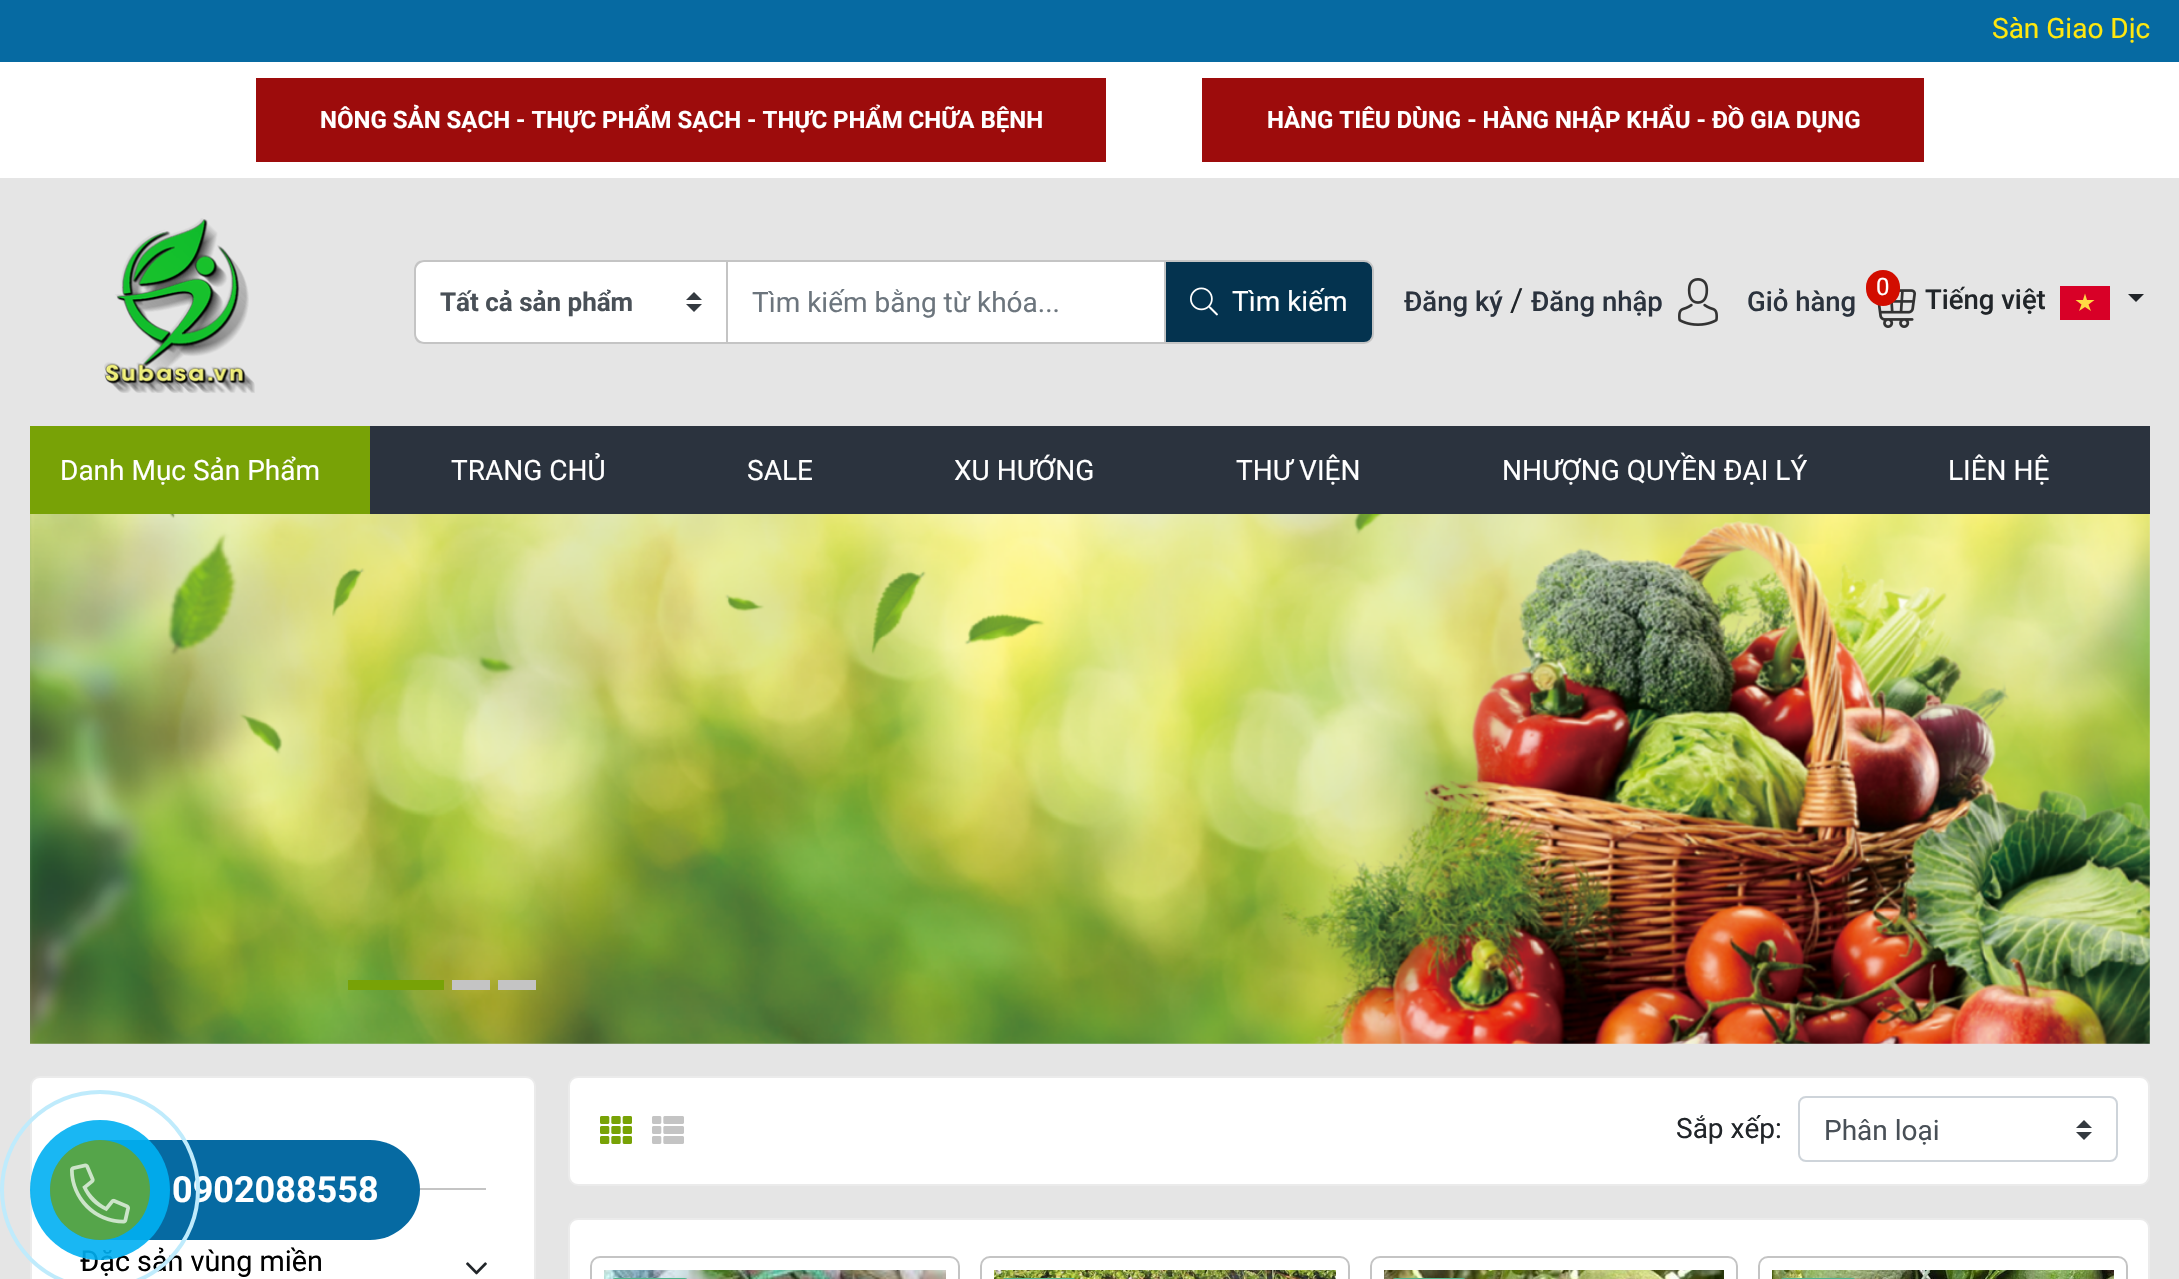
static SkFont makeFont(const char* family, int weight, float size, bool italic = false) {
  SkFontStyle style(weight, SkFontStyle::kNormal_Width,
    italic ? SkFontStyle::kItalic_Slant : SkFontStyle::kUpright_Slant);
  SkFont result(fontMgr->matchFamilyStyle(family, style), size);
  result.setSubpixel(true);
  return result;
}

static void text(SkCanvas* c, const char* s, float x, float y, const SkFont& font, SkColor color) {
  SkPaint ink(SkColor4f::FromColor(color));
  ink.setAntiAlias(true);
  c->drawString(s, x, y, font, ink);
}

static void box(SkCanvas* c, float l, float t, float r, float b, SkColor color) {
  SkPaint ink(SkColor4f::FromColor(color));
  ink.setAntiAlias(true);
  c->drawRect(SkRect::MakeLTRB(l, t, r, b), ink);
}

static void roundBox(SkCanvas* c, float l, float t, float r, float b, float radius, SkColor color) {
  SkPaint ink(SkColor4f::FromColor(color));
  ink.setAntiAlias(true);
  c->drawRoundRect(SkRect::MakeLTRB(l, t, r, b), radius, radius, ink);
}

static void picture(SkCanvas* c, const char* path, float l, float t, float r, float b) {
  auto image = SkImages::DeferredFromEncodedData(SkData::MakeFromFileName(path));
  c->drawImageRect(image, SkRect::MakeLTRB(l, t, r, b), SkSamplingOptions());
}

void draw(SkCanvas* c) {
  SkPaint paint;
  paint.setAntiAlias(true);
  c->clear(0xffe5e5e5);
  box(c, 0, 0, 2179, 62, 0xff066aa2);
  SkFont face1 = makeFont("Roboto", 400, 28);
  text(c, "Sàn Giao Dịc", 1992, 38, face1, 0xffffe70e);
  box(c, 0, 62, 2179, 178, 0xffffffff);
  box(c, 256, 78, 1106, 162, 0xff9d0c0c);
  SkFont face2 = makeFont("Roboto", 700, 24);
  text(c, "NÔNG SẢN SẠCH - THỰC PHẨM SẠCH - THỰC PHẨM CHỮA BỆNH", 320, 128, face2, 0xffffffff);
  box(c, 1202, 78, 1924, 162, 0xff9d0c0c);
  text(c, "HÀNG TIÊU DÙNG - HÀNG NHẬP KHẨU - ĐỒ GIA DỤNG", 1267, 128, face2, 0xffffffff);
  picture(c, "img_01.png", 104, 218, 255, 393);
  paint.setColor(0xffffffff);
  c->drawPath(SkPathBuilder().moveTo(424, 260).lineTo(726, 260).lineTo(726, 344).lineTo(424, 344).cubicTo(418.5f, 344, 414, 339.5f, 414, 334).lineTo(414, 270).cubicTo(414, 264.5f, 418.5f, 260, 424, 260).close().detach(), paint);
  paint.setColor(0xff343a40);
  c->drawPath(SkPathBuilder().moveTo(694, 292).lineTo(686, 300).lineTo(702, 300).close().moveTo(694, 312).lineTo(686, 304).lineTo(702, 304).close().detach(), paint);
  paint.setColor(0xffc4c4c4);
  c->drawPath(SkPathBuilder(SkPathFillType::kEvenOdd).moveTo(424, 260).lineTo(726, 260).lineTo(726, 344).lineTo(424, 344).cubicTo(418, 344, 414, 340, 414, 334).lineTo(414, 270).cubicTo(414, 264, 418, 260, 424, 260).close().moveTo(424, 262).lineTo(726, 262).lineTo(726, 342).lineTo(424, 342).cubicTo(420, 342, 416, 338, 416, 334).lineTo(416, 270).cubicTo(416, 266, 420, 262, 424, 262).close().detach(), paint);
  SkFont face3 = makeFont("Roboto", 700, 26);
  text(c, "Tất cả sản phẩm", 440, 311, face3, 0xff495057);
  box(c, 728, 262, 1164, 342, 0xffffffff);
  paint.setStyle(SkPaint::kStroke_Style);
  paint.setStrokeWidth(2);
  c->drawRect(SkRect::MakeLTRB(727, 261, 1359, 343), paint);
  text(c, "Tìm kiếm bằng từ khóa...", 752, 312, face1, 0xff6c757d);
  paint.setStyle(SkPaint::kFill_Style);
  paint.setColor(0xff04334f);
  c->drawPath(SkPathBuilder().moveTo(1165, 261).lineTo(1364, 261).cubicTo(1369, 261, 1373, 265, 1373, 270).lineTo(1373, 334).cubicTo(1373, 339, 1369, 343, 1364, 343).lineTo(1165, 343).close().detach(), paint);
  paint.setStyle(SkPaint::kStroke_Style);
  paint.setColor(0xffc4c4c4);
  c->drawPath(SkPathBuilder().moveTo(1165, 261).lineTo(1364, 261).cubicTo(1369, 261, 1373, 265, 1373, 270).lineTo(1373, 334).cubicTo(1373, 339, 1369, 343, 1364, 343).lineTo(1165, 343).close().detach(), paint);
  picture(c, "img_02.png", 1190, 287, 1218, 316);
  text(c, "Tìm kiếm", 1232, 311, face1, 0xffffffff);
  SkFont face4 = makeFont("Roboto", 500, 27.5f);
  text(c, "Đăng ký", 1404, 311, face4, 0xff2b333e);
  SkFont face5 = makeFont("Roboto", 400, 32);
  text(c, "/", 1510, 311, face5, 0xff212529);
  text(c, "Đăng nhập", 1531, 311, face4, 0xff2b333e);
  picture(c, "img_03.png", 1678, 278, 1718, 326);
  text(c, "Giỏ hàng", 1747, 311, face4, 0xff2b333e);
  picture(c, "img_04.png", 1877, 289, 1916, 328);
  roundBox(c, 1866, 270, 1900, 306, 17, 0xffd20d00);
  SkFont face6 = makeFont("Roboto", 400, 24);
  text(c, "0", 1876, 295, face6, 0xffffffff);
  text(c, "Tiếng việt", 1925, 309, face4, 0xff212529);
  paint.setStyle(SkPaint::kFill_Style);
  paint.setColor(0xffd80027);
  c->drawPath(SkPathBuilder().moveTo(2079, 286).lineTo(2060, 286).lineTo(2060, 320).lineTo(2110, 320).lineTo(2110, 286).close().detach(), paint);
  paint.setColor(0xffffda44);
  c->drawPath(SkPathBuilder().moveTo(2085, 293.5f).lineTo(2087, 300).lineTo(2094.5f, 300).lineTo(2088.5f, 304.5f).lineTo(2091, 311).lineTo(2085, 307).lineTo(2079, 311).lineTo(2081.5f, 304.5f).lineTo(2075.5f, 300).lineTo(2083, 300).close().detach(), paint);
  paint.setColor(0xff212529);
  c->drawPath(SkPathBuilder().moveTo(2128, 294).lineTo(2144, 294).lineTo(2136, 302).close().detach(), paint);
  box(c, 370, 426, 2150, 514, 0xff2b333e);
  box(c, 30, 426, 370, 514, 0xff78a206);
  text(c, "Danh Mục Sản Phẩm", 60, 480, face1, 0xffffffff);
  text(c, "TRANG CHỦ", 451, 480, face1, 0xffffffff);
  text(c, "SALE", 747, 480, face1, 0xffffffff);
  text(c, "XU HƯỚNG", 954, 480, face1, 0xffffffff);
  text(c, "THƯ VIỆN", 1236, 480, face1, 0xffffffff);
  text(c, "NHƯỢNG QUYỀN ĐẠI LÝ", 1502, 480, face1, 0xffffffff);
  text(c, "LIÊN HỆ", 1948, 480, face1, 0xffffffff);
  picture(c, "img_05.png", 30, 514, 2150, 1044);
  box(c, 348, 980, 444, 990, 0xff78a206);
  box(c, 452, 980, 490, 990, 0xffc4c4c4);
  box(c, 498, 980, 536, 990, 0xffc4c4c4);
  paint.setColor(0xffffffff);
  c->drawRoundRect(SkRect::MakeLTRB(569, 1077, 2149, 1185), 9, 9, paint);
  paint.setStyle(SkPaint::kStroke_Style);
  paint.setColor(0xffebebeb);
  c->drawRoundRect(SkRect::MakeLTRB(569, 1077, 2149, 1185), 9, 9, paint);
  picture(c, "img_06.png", 600, 1116, 632, 1144);
  picture(c, "img_07.png", 652, 1116, 684, 1144);
  text(c, "Sắp xếp:", 1676, 1138, face1, 0xff212529);
  paint.setStyle(SkPaint::kFill_Style);
  paint.setColor(0xff343a40);
  c->drawPath(SkPathBuilder().moveTo(2084, 1120).lineTo(2076, 1128).lineTo(2092, 1128).close().moveTo(2084, 1140).lineTo(2076, 1132).lineTo(2092, 1132).close().detach(), paint);
  paint.setStyle(SkPaint::kStroke_Style);
  paint.setColor(0xffced4da);
  c->drawRoundRect(SkRect::MakeLTRB(1799, 1097, 2117, 1161), 7, 7, paint);
  text(c, "Phân loại", 1824, 1140, face1, 0xff495057);
  paint.setStyle(SkPaint::kFill_Style);
  paint.setColor(0xffffffff);
  c->drawRoundRect(SkRect::MakeLTRB(569, 1219, 2149, 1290), 9, 9, paint);
  paint.setStyle(SkPaint::kStroke_Style);
  paint.setColor(0xffebebeb);
  c->drawRoundRect(SkRect::MakeLTRB(569, 1219, 2149, 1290), 9, 9, paint);
  paint.setColor(0xffc4c4c4);
  c->drawRoundRect(SkRect::MakeLTRB(591, 1257, 959, 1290), 9, 9, paint);
  picture(c, "img_08.png", 604, 1270, 946, 1279);
  roundBox(c, 612, 1278, 688, 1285, 6, 0xff4fb68d);
  c->drawRoundRect(SkRect::MakeLTRB(981, 1257, 1349, 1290), 9, 9, paint);
  picture(c, "img_09.png", 994, 1270, 1336, 1279);
  roundBox(c, 1002, 1278, 1076, 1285, 6, 0xff4fb68d);
  c->drawRoundRect(SkRect::MakeLTRB(1371, 1257, 1737, 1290), 9, 9, paint);
  picture(c, "img_10.png", 1384, 1270, 1724, 1279);
  roundBox(c, 1392, 1278, 1466, 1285, 6, 0xff4fb68d);
  c->drawRoundRect(SkRect::MakeLTRB(1759, 1257, 2127, 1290), 9, 9, paint);
  picture(c, "img_11.png", 1772, 1270, 2114, 1279);
  roundBox(c, 1780, 1278, 1856, 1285, 6, 0xff4fb68d);
  paint.setStyle(SkPaint::kFill_Style);
  paint.setColor(0xffffffff);
  c->drawRoundRect(SkRect::MakeLTRB(31, 1077, 535, 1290), 9, 9, paint);
  paint.setStyle(SkPaint::kStroke_Style);
  paint.setColor(0xffebebeb);
  c->drawRoundRect(SkRect::MakeLTRB(31, 1077, 535, 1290), 9, 9, paint);
  box(c, 419, 1188, 486, 1190, 0xffc4c4c4);
  SkFont face7 = makeFont("Roboto", 400, 28.75f);
  text(c, "Đặc sản vùng miền", 80, 1271, face7, 0xff000000);
  picture(c, "img_12.png", 466, 1262, 487, 1275);
  roundBox(c, 50, 1140, 420, 1240, 50, 0xff066aa2);
  SkFont face8 = makeFont("Roboto", 700, 36);
  text(c, "0902088558", 172, 1202, face8, 0xffffffff);
  paint.setStrokeWidth(4);
  paint.setColor(0xffbfebfc);
  c->drawCircle(100, 1190, 98, paint);
  paint.setStyle(SkPaint::kFill_Style);
  paint.setColor(0xe600aff2);
  c->drawCircle(100, 1190, 70, paint);
  paint.setColor(0xb378a206);
  c->drawCircle(100, 1190, 50, paint);
  picture(c, "img_13.png", 70, 1163, 130, 1224);
}
